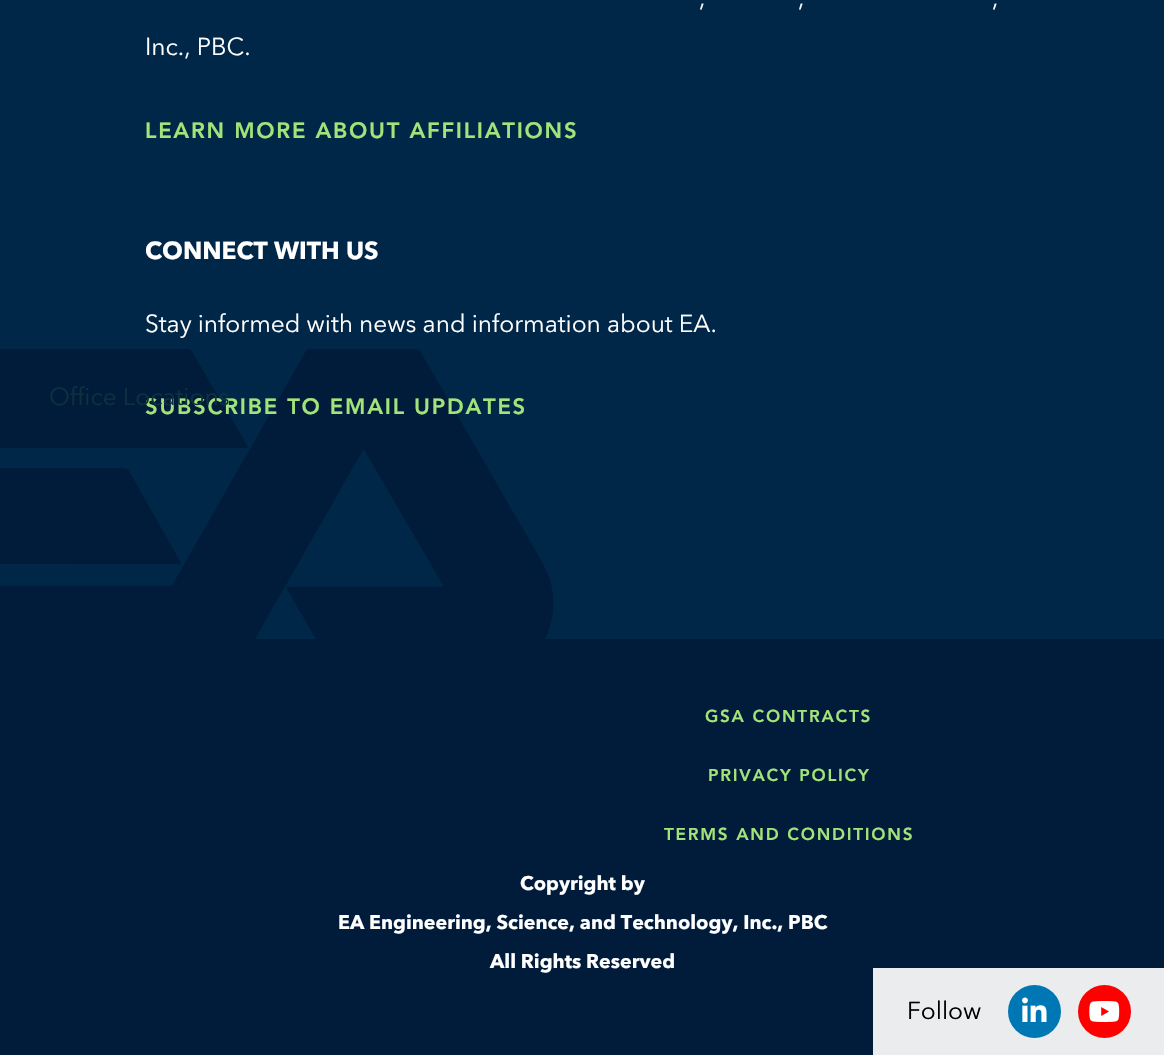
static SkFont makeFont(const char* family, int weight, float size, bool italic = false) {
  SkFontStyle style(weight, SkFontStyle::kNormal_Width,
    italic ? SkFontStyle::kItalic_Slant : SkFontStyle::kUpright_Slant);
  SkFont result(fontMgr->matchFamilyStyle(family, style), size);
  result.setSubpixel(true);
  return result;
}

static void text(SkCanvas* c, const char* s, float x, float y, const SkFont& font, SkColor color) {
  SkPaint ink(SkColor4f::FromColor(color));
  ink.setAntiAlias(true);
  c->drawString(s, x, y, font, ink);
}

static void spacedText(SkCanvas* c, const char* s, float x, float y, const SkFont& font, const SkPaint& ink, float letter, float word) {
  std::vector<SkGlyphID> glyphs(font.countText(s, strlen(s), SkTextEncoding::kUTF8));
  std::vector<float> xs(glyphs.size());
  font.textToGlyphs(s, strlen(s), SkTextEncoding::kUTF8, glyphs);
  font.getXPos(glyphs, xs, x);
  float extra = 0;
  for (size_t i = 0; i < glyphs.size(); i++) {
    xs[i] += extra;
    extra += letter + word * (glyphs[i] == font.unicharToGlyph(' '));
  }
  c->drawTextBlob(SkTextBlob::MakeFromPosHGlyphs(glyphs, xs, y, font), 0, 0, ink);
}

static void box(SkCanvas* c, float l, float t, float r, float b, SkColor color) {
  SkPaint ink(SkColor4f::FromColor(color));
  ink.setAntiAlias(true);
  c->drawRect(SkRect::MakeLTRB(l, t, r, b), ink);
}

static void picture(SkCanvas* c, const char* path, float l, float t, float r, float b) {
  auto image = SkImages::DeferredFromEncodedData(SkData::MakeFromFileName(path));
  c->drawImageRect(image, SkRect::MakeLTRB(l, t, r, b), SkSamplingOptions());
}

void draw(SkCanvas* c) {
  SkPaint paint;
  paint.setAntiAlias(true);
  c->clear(0xff002747);
  picture(c, "img_01.png", 0, 349, 554, 639);
  SkFont face1 = makeFont("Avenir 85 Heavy", 900, 22);
  paint.setColor(0xffa2e47a);
  spacedText(c, "SUBSCRIBE TO EMAIL UPDATES", 145, 414, face1, paint, 1.75f, 0);
  SkFont face2 = makeFont("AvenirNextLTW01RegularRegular", 400, 24.5f);
  text(c, "Office Locations", 49, 405, face2, 0xff0f3041);
  text(c, ",", 699, 6, face2, 0xffffffff);
  text(c, ",", 798, 6, face2, 0xffffffff);
  text(c, ",", 992, 6, face2, 0xffffffff);
  text(c, "Inc., PBC.", 145, 55, face2, 0xffffffff);
  spacedText(c, "LEARN MORE ABOUT AFFILIATIONS", 145, 138, face1, paint, 1.75f, 0);
  SkFont face3 = makeFont("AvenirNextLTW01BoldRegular", 700, 24.5f);
  text(c, "CONNECT WITH US", 145, 259, face3, 0xffffffff);
  text(c, "Stay informed with news and information about EA.", 145, 332, face2, 0xffffffff);
  box(c, 0, 639, 1164, 1055, 0xff001c3a);
  SkFont face4 = makeFont("Avenir 85 Heavy", 900, 17.1f);
  spacedText(c, "GSA CONTRACTS", 705, 722, face4, paint, 1.75f, 0);
  spacedText(c, "PRIVACY POLICY", 708, 781, face4, paint, 1.75f, 0);
  spacedText(c, "TERMS AND CONDITIONS", 664, 840, face4, paint, 1.75f, 0);
  SkFont face5 = makeFont("AvenirNextLTW01BoldRegular", 700, 19.6f);
  text(c, "Copyright by", 520, 890, face5, 0xffffffff);
  text(c, "EA Engineering, Science, and Technology, Inc., PBC", 338, 929, face5, 0xffffffff);
  text(c, "All Rights Reserved", 490, 968, face5, 0xffffffff);
  box(c, 873, 968, 1164, 1055, 0xfaf0f0f0);
  text(c, "Follow", 907, 1019, face2, 0xff000000);
  paint.setColor(0xff0077b5);
  c->drawCircle(1034.5f, 1011.5f, 26.5f, paint);
  picture(c, "img_02.png", 1022, 997, 1047, 1022);
  paint.setColor(0xffff0000);
  c->drawCircle(1104.5f, 1011.5f, 26.5f, paint);
  picture(c, "img_03.png", 1089, 1001, 1120, 1022);
}
